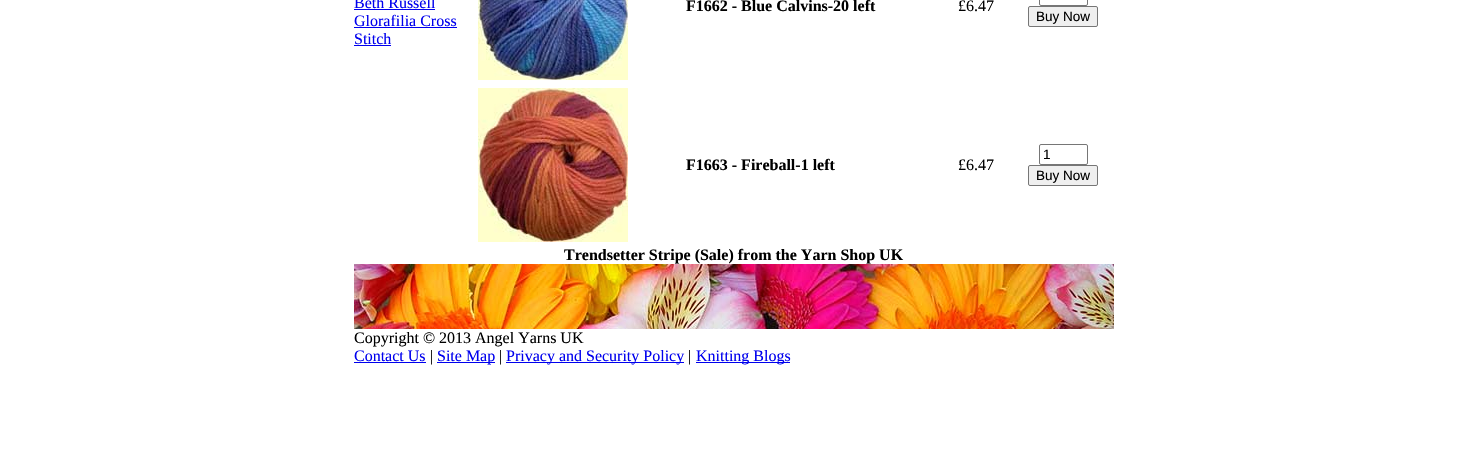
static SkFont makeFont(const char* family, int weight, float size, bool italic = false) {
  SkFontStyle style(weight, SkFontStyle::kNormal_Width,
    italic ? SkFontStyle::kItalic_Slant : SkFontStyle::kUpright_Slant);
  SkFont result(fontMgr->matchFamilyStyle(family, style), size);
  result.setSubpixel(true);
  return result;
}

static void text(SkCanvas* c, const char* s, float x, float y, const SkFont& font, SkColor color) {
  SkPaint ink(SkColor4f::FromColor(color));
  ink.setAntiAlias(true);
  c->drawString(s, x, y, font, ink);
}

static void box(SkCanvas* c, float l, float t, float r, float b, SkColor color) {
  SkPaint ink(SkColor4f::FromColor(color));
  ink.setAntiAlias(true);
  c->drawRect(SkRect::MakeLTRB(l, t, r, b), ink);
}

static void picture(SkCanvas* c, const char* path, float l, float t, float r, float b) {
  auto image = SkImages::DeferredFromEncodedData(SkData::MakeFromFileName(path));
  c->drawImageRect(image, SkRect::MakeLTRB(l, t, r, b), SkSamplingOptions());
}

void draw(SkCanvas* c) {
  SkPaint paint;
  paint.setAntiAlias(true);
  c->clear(0xffffffff);
  SkFont face1 = makeFont("Liberation Serif", 400, 16);
  text(c, "Beth Russell", 354, 8, face1, 0xff0000ee);
  box(c, 354, 9, 435, 10, 0xff0000ee);
  text(c, "Glorafilia Cross", 354, 26, face1, 0xff0000ee);
  box(c, 354, 27, 457, 28, 0xff0000ee);
  text(c, "Stitch", 354, 44, face1, 0xff0000ee);
  box(c, 354, 45, 391, 46, 0xff0000ee);
  picture(c, "img_01.png", 478, 0, 628, 80);
  SkFont face2 = makeFont("Liberation Serif", 700, 16);
  text(c, "F1662 - Blue Calvins-20 left", 686, 11, face2, 0xff000000);
  text(c, "£6.47", 958, 11, face1, 0xff000000);
  paint.setStyle(SkPaint::kStroke_Style);
  paint.setStrokeWidth(1);
  paint.setColor(0xff767676);
  c->drawRoundRect(SkRect::MakeLTRB(1039.5f, -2.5f, 1087.5f, 5.5f), 1.5f, 1.5f, paint);
  paint.setStyle(SkPaint::kFill_Style);
  paint.setColor(0xffefefef);
  c->drawRoundRect(SkRect::MakeLTRB(1028.5f, 6.5f, 1097.5f, 26.5f), 1.5f, 1.5f, paint);
  paint.setStyle(SkPaint::kStroke_Style);
  paint.setColor(0xff767676);
  c->drawRoundRect(SkRect::MakeLTRB(1028.5f, 6.5f, 1097.5f, 26.5f), 1.5f, 1.5f, paint);
  SkFont face3 = makeFont("Liberation Sans", 400, 13.5f);
  text(c, "Buy Now", 1036, 21, face3, 0xff000000);
  picture(c, "img_02.png", 478, 88, 628, 242);
  text(c, "F1663 - Fireball-1 left", 686, 170, face2, 0xff000000);
  text(c, "£6.47", 958, 170, face1, 0xff000000);
  c->drawRoundRect(SkRect::MakeLTRB(1039.5f, 144.5f, 1087.5f, 164.5f), 1.5f, 1.5f, paint);
  text(c, "1", 1043, 159, face3, 0xff000000);
  paint.setStyle(SkPaint::kFill_Style);
  paint.setColor(0xffefefef);
  c->drawRoundRect(SkRect::MakeLTRB(1028.5f, 165.5f, 1097.5f, 185.5f), 1.5f, 1.5f, paint);
  paint.setStyle(SkPaint::kStroke_Style);
  paint.setColor(0xff767676);
  c->drawRoundRect(SkRect::MakeLTRB(1028.5f, 165.5f, 1097.5f, 185.5f), 1.5f, 1.5f, paint);
  text(c, "Buy Now", 1036, 180, face3, 0xff000000);
  text(c, "Trendsetter Stripe (Sale) from the Yarn Shop UK", 564, 260, face2, 0xff000000);
  picture(c, "img_03.png", 354, 264, 1114, 329);
  text(c, "Copyright © 2013 Angel Yarns UK", 354, 343, face1, 0xff000000);
  text(c, "Contact Us", 354, 361, face1, 0xff0000ee);
  box(c, 354, 362, 426, 363, 0xff0000ee);
  text(c, "|", 430, 361, face1, 0xff000000);
  box(c, 437, 362, 495, 363, 0xff0000ee);
  text(c, "Site Map", 437, 361, face1, 0xff0000ee);
  text(c, "|", 499, 361, face1, 0xff000000);
  box(c, 506, 362, 684, 363, 0xff0000ee);
  text(c, "Privacy and Security Policy", 506, 361, face1, 0xff0000ee);
  text(c, "|", 688, 361, face1, 0xff000000);
  box(c, 696, 362, 790, 363, 0xff0000ee);
  text(c, "Knitting Blogs", 696, 361, face1, 0xff0000ee);
}
